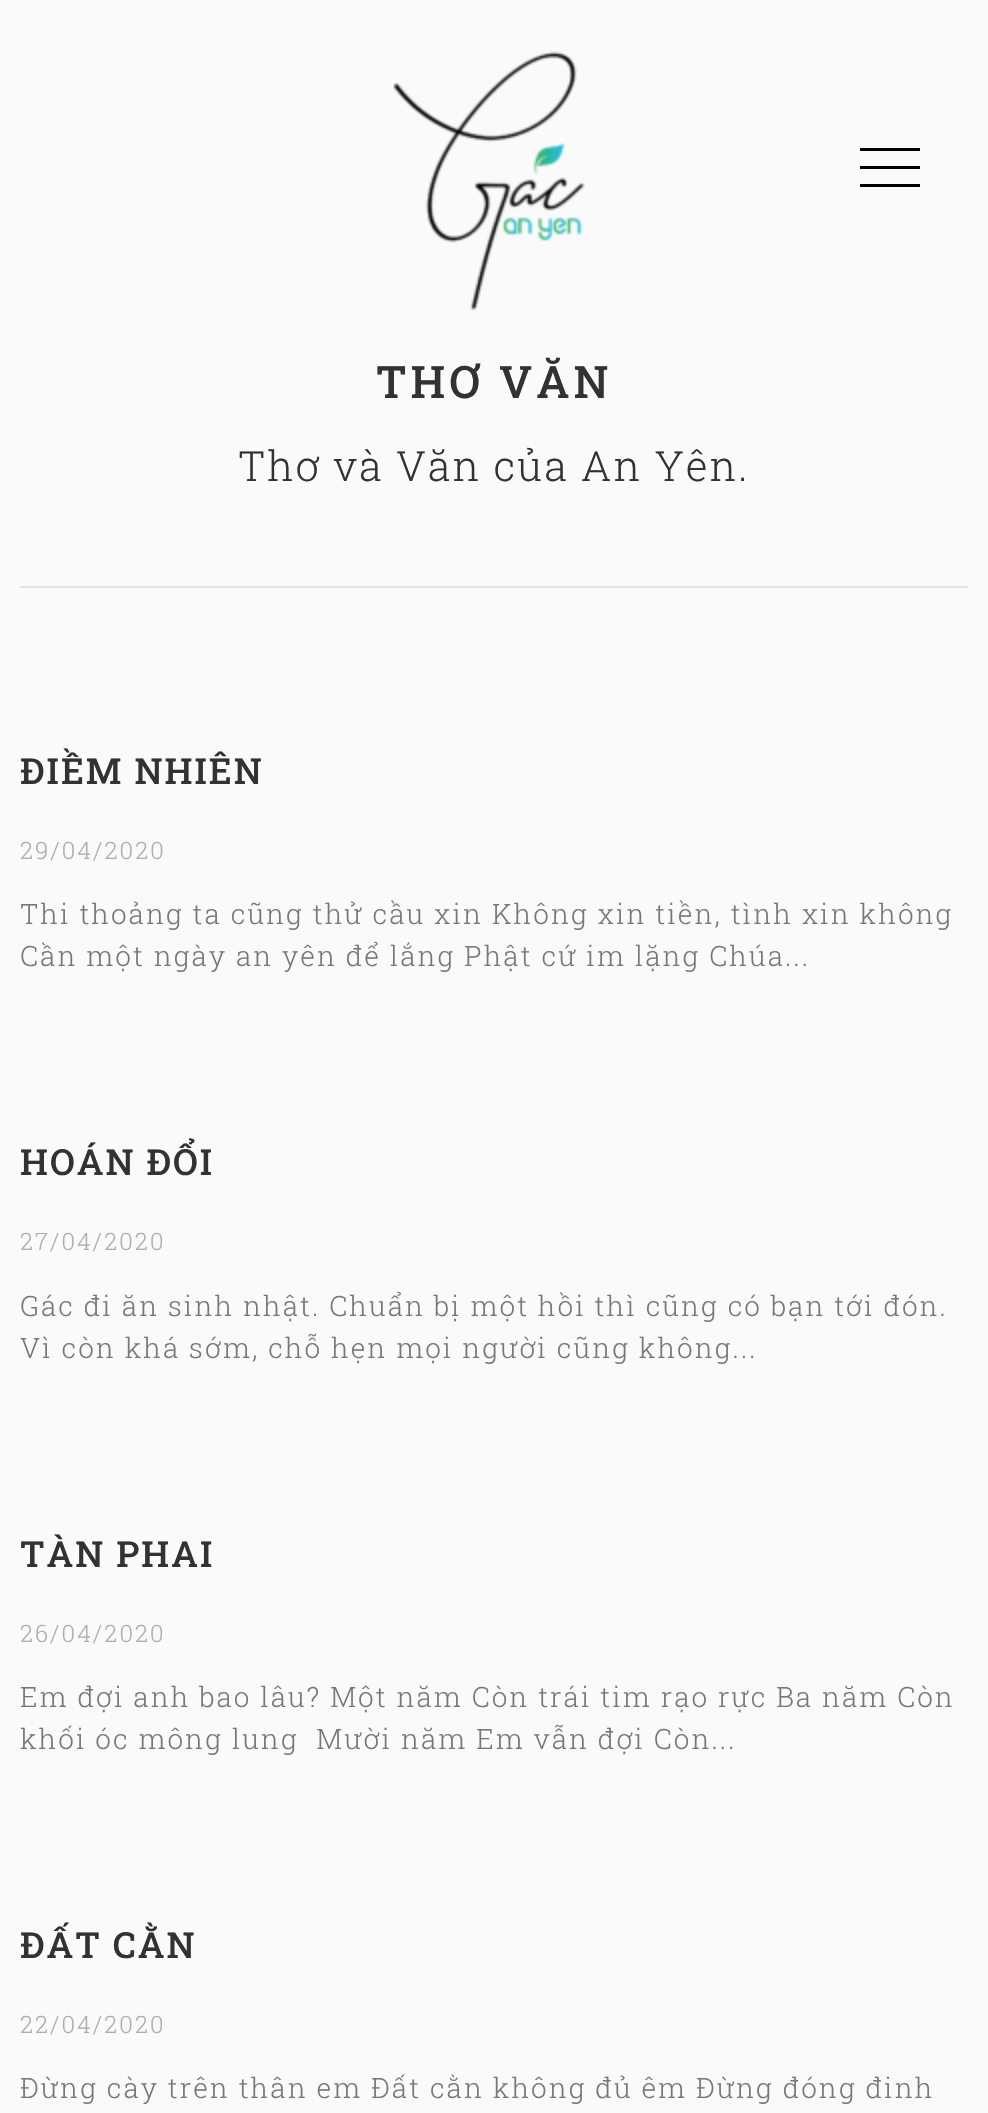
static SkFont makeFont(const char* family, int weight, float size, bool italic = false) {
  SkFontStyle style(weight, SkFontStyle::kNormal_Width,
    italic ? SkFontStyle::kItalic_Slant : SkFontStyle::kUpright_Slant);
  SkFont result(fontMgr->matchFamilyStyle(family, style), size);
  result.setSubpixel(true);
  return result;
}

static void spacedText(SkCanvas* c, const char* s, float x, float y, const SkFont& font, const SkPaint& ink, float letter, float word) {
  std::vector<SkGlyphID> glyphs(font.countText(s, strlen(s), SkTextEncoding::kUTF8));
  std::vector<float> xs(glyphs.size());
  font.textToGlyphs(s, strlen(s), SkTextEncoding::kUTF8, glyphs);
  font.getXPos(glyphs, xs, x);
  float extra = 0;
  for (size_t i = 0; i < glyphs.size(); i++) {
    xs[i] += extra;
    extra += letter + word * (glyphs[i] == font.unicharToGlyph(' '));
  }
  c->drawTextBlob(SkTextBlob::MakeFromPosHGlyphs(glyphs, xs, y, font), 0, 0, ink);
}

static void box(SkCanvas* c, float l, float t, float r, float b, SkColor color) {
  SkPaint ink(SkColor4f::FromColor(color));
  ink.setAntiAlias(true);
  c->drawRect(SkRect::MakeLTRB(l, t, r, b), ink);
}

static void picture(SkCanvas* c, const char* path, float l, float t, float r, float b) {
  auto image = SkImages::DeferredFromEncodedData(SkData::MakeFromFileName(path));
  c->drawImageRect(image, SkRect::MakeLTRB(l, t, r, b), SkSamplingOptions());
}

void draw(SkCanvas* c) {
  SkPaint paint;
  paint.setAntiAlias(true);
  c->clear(0xfffafafa);
  picture(c, "img_01.png", 393, 51, 585, 311);
  box(c, 860, 148, 920, 151, 0xff000000);
  box(c, 860, 166, 920, 169, 0xff000000);
  box(c, 860, 184, 920, 187, 0xff000000);
  SkFont face1 = makeFont("Roboto Slab", 500, 44.75f);
  paint.setColor(0xff323232);
  spacedText(c, "THƠ VĂN", 376, 398, face1, paint, 4, 0);
  SkFont face2 = makeFont("Roboto Slab", 300, 41.6f);
  spacedText(c, "Thơ và Văn của An Yên.", 238, 481, face2, paint, 2, 0);
  box(c, 20, 586, 968, 588, 0xffe3e3e3);
  SkFont face3 = makeFont("Roboto Slab", 500, 36);
  spacedText(c, "ĐIỀM NHIÊN", 20, 784, face3, paint, 2, 0);
  SkFont face4 = makeFont("Roboto Slab", 300, 24);
  paint.setColor(0xffadadad);
  spacedText(c, "29/04/2020", 20, 859, face4, paint, 2, 0);
  SkFont face5 = makeFont("Roboto Slab", 300, 28);
  paint.setColor(0xff777777);
  spacedText(c, "Thi thoảng ta cũng thử cầu xin Không xin tiền, tình xin không", 20, 924, face5, paint, 2, 0);
  spacedText(c, "Cần một ngày an yên để lắng Phật cứ im lặng Chúa...", 20, 966, face5, paint, 2, 0);
  paint.setColor(0xff323232);
  spacedText(c, "HOÁN ĐỔI", 20, 1175, face3, paint, 2, 0);
  paint.setColor(0xffadadad);
  spacedText(c, "27/04/2020", 20, 1250, face4, paint, 2, 0);
  paint.setColor(0xff777777);
  spacedText(c, "Gác đi ăn sinh nhật. Chuẩn bị một hồi thì cũng có bạn tới đón.", 20, 1316, face5, paint, 2, 0);
  spacedText(c, "Vì còn khá sớm, chỗ hẹn mọi người cũng không...", 20, 1358, face5, paint, 2, 0);
  paint.setColor(0xff323232);
  spacedText(c, "TÀN PHAI", 20, 1567, face3, paint, 2, 0);
  paint.setColor(0xffadadad);
  spacedText(c, "26/04/2020", 20, 1642, face4, paint, 2, 0);
  paint.setColor(0xff777777);
  spacedText(c, "Em đợi anh bao lâu? Một năm Còn trái tim rạo rực Ba năm Còn", 20, 1707, face5, paint, 2, 0);
  spacedText(c, "khối óc mông lung  Mười năm Em vẫn đợi Còn...", 20, 1749, face5, paint, 2, 0);
  paint.setColor(0xff323232);
  spacedText(c, "ĐẤT CẰN", 20, 1958, face3, paint, 2, 0);
  paint.setColor(0xffadadad);
  spacedText(c, "22/04/2020", 20, 2033, face4, paint, 2, 0);
  paint.setColor(0xff777777);
  spacedText(c, "Đừng cày trên thân em Đất cằn không đủ êm Đừng đóng đinh", 20, 2098, face5, paint, 2, 0);
}
